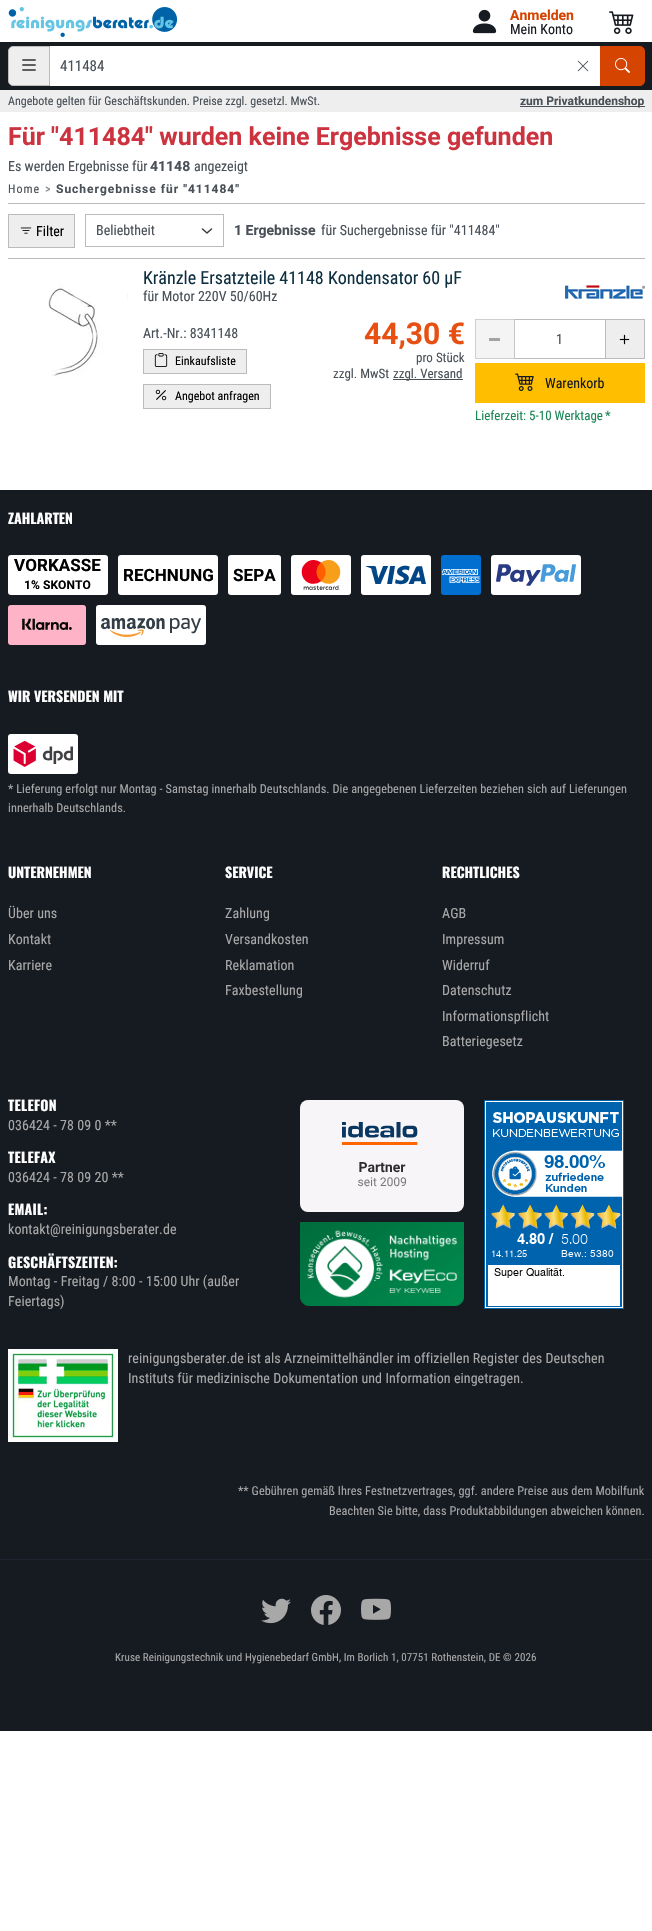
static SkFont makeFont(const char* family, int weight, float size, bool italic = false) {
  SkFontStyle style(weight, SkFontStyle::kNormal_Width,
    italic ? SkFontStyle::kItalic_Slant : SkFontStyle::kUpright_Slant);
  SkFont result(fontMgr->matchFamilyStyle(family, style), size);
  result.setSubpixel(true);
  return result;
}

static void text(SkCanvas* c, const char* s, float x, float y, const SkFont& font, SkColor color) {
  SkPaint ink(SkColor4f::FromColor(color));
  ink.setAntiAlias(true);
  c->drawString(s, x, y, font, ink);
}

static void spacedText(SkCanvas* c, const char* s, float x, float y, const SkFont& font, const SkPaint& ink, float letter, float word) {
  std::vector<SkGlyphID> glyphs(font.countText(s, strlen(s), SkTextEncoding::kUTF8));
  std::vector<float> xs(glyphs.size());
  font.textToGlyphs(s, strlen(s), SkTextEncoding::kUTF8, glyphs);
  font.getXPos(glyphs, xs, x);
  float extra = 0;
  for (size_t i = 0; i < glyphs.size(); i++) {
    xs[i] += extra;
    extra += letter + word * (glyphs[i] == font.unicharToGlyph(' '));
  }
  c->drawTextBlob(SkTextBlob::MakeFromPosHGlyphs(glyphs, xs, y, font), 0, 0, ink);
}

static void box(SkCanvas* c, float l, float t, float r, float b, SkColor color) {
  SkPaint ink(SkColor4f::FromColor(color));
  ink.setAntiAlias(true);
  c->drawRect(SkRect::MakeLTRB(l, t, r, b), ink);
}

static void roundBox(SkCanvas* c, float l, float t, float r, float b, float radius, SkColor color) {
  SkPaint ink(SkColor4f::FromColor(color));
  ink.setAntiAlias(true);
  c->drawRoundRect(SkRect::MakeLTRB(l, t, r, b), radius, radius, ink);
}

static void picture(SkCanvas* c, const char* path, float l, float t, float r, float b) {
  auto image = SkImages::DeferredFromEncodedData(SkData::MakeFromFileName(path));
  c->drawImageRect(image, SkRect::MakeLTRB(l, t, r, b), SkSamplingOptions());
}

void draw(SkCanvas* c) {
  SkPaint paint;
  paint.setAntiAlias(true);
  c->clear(0xffffffff);
  picture(c, "img_01.png", 8, 7, 177, 37);
  picture(c, "img_02.png", 472, 9, 497, 34);
  SkFont face1 = makeFont("Roboto", 700, 14);
  text(c, "Anmelden", 510, 20, face1, 0xffd54401);
  SkFont face2 = makeFont("Roboto Condensed", 400, 14);
  text(c, "Mein Konto", 510, 34, face2, 0xff161a21);
  picture(c, "img_03.png", 609, 11, 634, 34);
  box(c, 0, 42, 652, 90, 0xff161a21);
  paint.setColor(0xffeeeeee);
  c->drawPath(SkPathBuilder().moveTo(13, 46.5f).lineTo(49.5f, 46.5f).lineTo(49.5f, 85.5f).lineTo(13, 85.5f).cubicTo(10.5f, 85.5f, 8.5f, 83.5f, 8.5f, 81).lineTo(8.5f, 51).cubicTo(8.5f, 48.5f, 10.5f, 46.5f, 13, 46.5f).close().detach(), paint);
  paint.setStyle(SkPaint::kStroke_Style);
  paint.setStrokeWidth(1);
  paint.setColor(0xffbbbbbb);
  c->drawPath(SkPathBuilder().moveTo(13, 46.5f).lineTo(49.5f, 46.5f).lineTo(49.5f, 85.5f).lineTo(13, 85.5f).cubicTo(10.5f, 85.5f, 8.5f, 83.5f, 8.5f, 81).lineTo(8.5f, 51).cubicTo(8.5f, 48.5f, 10.5f, 46.5f, 13, 46.5f).close().detach(), paint);
  picture(c, "img_04.png", 22, 59, 36, 71);
  box(c, 50, 46, 600, 86, 0xffffffff);
  SkFont face3 = makeFont("Roboto Condensed", 400, 15);
  text(c, "411484", 60, 71, face3, 0xff495057);
  picture(c, "img_05.png", 577, 60, 589, 72);
  paint.setStyle(SkPaint::kFill_Style);
  paint.setColor(0xffd54401);
  c->drawPath(SkPathBuilder().moveTo(600.5f, 46.5f).lineTo(640, 46.5f).cubicTo(642.5f, 46.5f, 644.5f, 48.5f, 644.5f, 51).lineTo(644.5f, 81).cubicTo(644.5f, 83.5f, 642.5f, 85.5f, 640, 85.5f).lineTo(600.5f, 85.5f).close().detach(), paint);
  paint.setStyle(SkPaint::kStroke_Style);
  c->drawPath(SkPathBuilder().moveTo(600.5f, 46.5f).lineTo(640, 46.5f).cubicTo(642.5f, 46.5f, 644.5f, 48.5f, 644.5f, 51).lineTo(644.5f, 81).cubicTo(644.5f, 83.5f, 642.5f, 85.5f, 640, 85.5f).lineTo(600.5f, 85.5f).close().detach(), paint);
  picture(c, "img_06.png", 615, 58, 630, 73);
  box(c, 0, 90, 652, 112, 0xffeeeeee);
  SkFont face4 = makeFont("Roboto Condensed", 400, 12);
  text(c, "Angebote gelten für Geschäftskunden. Preise zzgl. gesetzl. MwSt.", 8, 105, face4, 0xff495057);
  box(c, 520, 106, 645, 107, 0xff495057);
  SkFont face5 = makeFont("Roboto", 700, 12);
  text(c, "zum Privatkundenshop", 520, 105, face5, 0xff495057);
  SkFont face6 = makeFont("Roboto", 700, 25);
  text(c, "Für \"411484\" wurden keine Ergebnisse gefunden", 8, 145, face6, 0xffcc333f);
  text(c, "Es werden Ergebnisse für", 8, 171, face2, 0xff495057);
  text(c, "41148", 150, 171, face1, 0xff495057);
  text(c, "angezeigt", 194, 171, face2, 0xff495057);
  box(c, 8, 203, 645, 204, 0xffbbbbbb);
  paint.setStyle(SkPaint::kFill_Style);
  paint.setColor(0xff495057);
  spacedText(c, "Home", 8, 193, face4, paint, 1, 0);
  paint.setColor(0xff777c81);
  spacedText(c, ">", 45, 193, face4, paint, 1, 0);
  paint.setColor(0xff495057);
  spacedText(c, "Suchergebnisse für \"411484\"", 56, 193, face5, paint, 1, 0);
  paint.setColor(0xffeeeeee);
  c->drawRect(SkRect::MakeLTRB(8.5f, 214.5f, 74.5f, 247.5f), paint);
  paint.setStyle(SkPaint::kStroke_Style);
  paint.setColor(0xffbbbbbb);
  c->drawRect(SkRect::MakeLTRB(8.5f, 214.5f, 74.5f, 247.5f), paint);
  picture(c, "img_07.png", 20, 227, 32, 234);
  text(c, "Filter", 36, 236, face2, 0xff000000);
  paint.setStrokeWidth(1.5f);
  paint.setStrokeCap(SkPaint::kRound_Cap);
  paint.setStrokeJoin(SkPaint::kRound_Join);
  paint.setColor(0xff343a40);
  c->drawPath(SkPathBuilder().moveTo(202.5f, 229).lineTo(207, 233).lineTo(211.5f, 229).detach(), paint);
  paint.setStrokeWidth(1);
  paint.setStrokeCap(SkPaint::kButt_Cap);
  paint.setStrokeJoin(SkPaint::kMiter_Join);
  paint.setColor(0xffbbbbbb);
  c->drawRect(SkRect::MakeLTRB(85.5f, 214.5f, 223.5f, 246.5f), paint);
  text(c, "Beliebtheit", 96, 235, face2, 0xff495057);
  text(c, "1 Ergebnisse", 234, 235, face1, 0xff495057);
  text(c, "für Suchergebnisse für \"411484\"", 321, 235, face2, 0xff495057);
  box(c, 8, 258, 645, 259, 0xffbbbbbb);
  picture(c, "img_08.png", 48, 285, 128, 377);
  SkFont face7 = makeFont("Roboto Condensed", 400, 18);
  text(c, "Kränzle Ersatzteile 41148 Kondensator 60 µF", 143, 284, face7, 0xff0e2f40);
  text(c, "für Motor 220V 50/60Hz", 143, 301, face2, 0xff495057);
  picture(c, "img_09.png", 565, 285, 645, 299);
  text(c, "Art.-Nr.: 8341148", 143, 338, face2, 0xff495057);
  paint.setStyle(SkPaint::kFill_Style);
  paint.setColor(0xffeeeeee);
  c->drawRect(SkRect::MakeLTRB(143.5f, 349.5f, 246.5f, 373.5f), paint);
  paint.setStyle(SkPaint::kStroke_Style);
  paint.setColor(0xffbbbbbb);
  c->drawRect(SkRect::MakeLTRB(143.5f, 349.5f, 246.5f, 373.5f), paint);
  picture(c, "img_10.png", 154, 353, 168, 367);
  text(c, "Einkaufsliste", 175, 365, face4, 0xff000000);
  paint.setStyle(SkPaint::kFill_Style);
  paint.setColor(0xffeeeeee);
  c->drawRect(SkRect::MakeLTRB(143.5f, 384.5f, 270.5f, 408.5f), paint);
  paint.setStyle(SkPaint::kStroke_Style);
  paint.setColor(0xffbbbbbb);
  c->drawRect(SkRect::MakeLTRB(143.5f, 384.5f, 270.5f, 408.5f), paint);
  picture(c, "img_11.png", 155, 389, 167, 401);
  text(c, "Angebot anfragen", 175, 400, face4, 0xff000000);
  SkFont face8 = makeFont("Roboto", 700, 30);
  text(c, "44,30 €", 364, 344, face8, 0xffe75012);
  SkFont face9 = makeFont("Roboto Condensed", 400, 13);
  text(c, "pro Stück", 416, 362, face9, 0xff495057);
  text(c, "zzgl. MwSt", 333, 378, face9, 0xff495057);
  box(c, 393, 379, 463, 380, 0xff495057);
  text(c, "zzgl. Versand", 393, 378, face9, 0xff495057);
  c->drawRect(SkRect::MakeLTRB(514.5f, 319.5f, 605.5f, 358.5f), paint);
  box(c, 475, 319, 515, 359, 0xa6eeeeee);
  paint.setColor(0xa6bbbbbb);
  c->drawRect(SkRect::MakeLTRB(475.5f, 319.5f, 514.5f, 358.5f), paint);
  box(c, 489, 338, 500, 341, 0xffa3a3a3);
  text(c, "1", 556, 344, face2, 0xff495057);
  paint.setStyle(SkPaint::kFill_Style);
  paint.setColor(0xffeeeeee);
  c->drawRect(SkRect::MakeLTRB(605.5f, 319.5f, 644.5f, 358.5f), paint);
  paint.setStyle(SkPaint::kStroke_Style);
  paint.setColor(0xffbbbbbb);
  c->drawRect(SkRect::MakeLTRB(605.5f, 319.5f, 644.5f, 358.5f), paint);
  picture(c, "img_12.png", 619, 334, 630, 345);
  box(c, 475, 363, 645, 403, 0xffffbf00);
  picture(c, "img_13.png", 515, 373, 534, 391);
  text(c, "Warenkorb", 545, 388, face2, 0xff161a21);
  text(c, "Lieferzeit: 5-10 Werktage", 475, 420, face9, 0xff198754);
  text(c, "*", 605, 420, face9, 0xff198754);
  box(c, 0, 490, 652, 1731, 0xff161a21);
  SkFont face10 = makeFont("Oswald", 700, 14);
  text(c, "ZAHLARTEN", 8, 524, face10, 0xffffffff);
  roundBox(c, 8, 555, 108, 595, 3, 0xffffffff);
  SkFont face11 = makeFont("Roboto", 700, 17);
  paint.setStyle(SkPaint::kFill_Style);
  paint.setColor(0xff000000);
  spacedText(c, "VORKASSE", 14, 571, face11, paint, 0.07f, 0);
  spacedText(c, "1% SKONTO", 24, 589, face5, paint, 0.07f, 0);
  roundBox(c, 118, 555, 218, 595, 3, 0xffffffff);
  spacedText(c, "RECHNUNG", 123, 581, face11, paint, 0.07f, 0);
  roundBox(c, 228, 555, 281, 595, 3, 0xffffffff);
  spacedText(c, "SEPA", 233, 581, face11, paint, 0.07f, 0);
  roundBox(c, 291, 555, 351, 595, 3, 0xffffffff);
  picture(c, "img_14.png", 301, 560, 341, 590);
  roundBox(c, 361, 555, 431, 595, 3, 0xffffffff);
  picture(c, "img_15.png", 366, 565, 426, 585);
  roundBox(c, 441, 555, 481, 595, 3, 0xff016fd0);
  picture(c, "img_16.png", 442, 569, 480, 583);
  roundBox(c, 491, 555, 581, 595, 3, 0xffffffff);
  picture(c, "img_17.png", 496, 564, 576, 586);
  picture(c, "img_18.png", 8, 605, 86, 645);
  roundBox(c, 96, 605, 206, 645, 3, 0xffffffff);
  picture(c, "img_19.png", 101, 618, 201, 637);
  text(c, "WIR VERSENDEN MIT", 8, 702, face10, 0xffffffff);
  roundBox(c, 8, 734, 78, 774, 3, 0xffffffff);
  picture(c, "img_20.png", 13, 741, 73, 767);
  SkFont face12 = makeFont("Roboto Condensed", 400, 12.25f);
  paint.setColor(0xffa8a8a8);
  spacedText(c, "* Lieferung erfolgt nur Montag - Samstag innerhalb Deutschlands. Die angegebenen Lieferzeiten beziehen sich auf Lieferungen", 8, 793, face12, paint, 0.07f, 0);
  spacedText(c, "innerhalb Deutschlands.", 8, 812, face12, paint, 0.07f, 0);
  text(c, "UNTERNEHMEN", 8, 878, face10, 0xffffffff);
  spacedText(c, "Über uns", 8, 918, face2, paint, 0.07f, 0);
  spacedText(c, "Kontakt", 8, 944, face2, paint, 0.07f, 0);
  spacedText(c, "Karriere", 8, 970, face2, paint, 0.07f, 0);
  text(c, "SERVICE", 225, 878, face10, 0xffffffff);
  spacedText(c, "Zahlung", 225, 918, face2, paint, 0.07f, 0);
  spacedText(c, "Versandkosten", 225, 944, face2, paint, 0.07f, 0);
  spacedText(c, "Reklamation", 225, 970, face2, paint, 0.07f, 0);
  spacedText(c, "Faxbestellung", 225, 995, face2, paint, 0.07f, 0);
  text(c, "RECHTLICHES", 442, 878, face10, 0xffffffff);
  spacedText(c, "AGB", 442, 918, face2, paint, 0.07f, 0);
  spacedText(c, "Impressum", 442, 944, face2, paint, 0.07f, 0);
  spacedText(c, "Widerruf", 442, 970, face2, paint, 0.07f, 0);
  spacedText(c, "Datenschutz", 442, 995, face2, paint, 0.07f, 0);
  spacedText(c, "Informationspflicht", 442, 1021, face2, paint, 0.07f, 0);
  spacedText(c, "Batteriegesetz", 442, 1046, face2, paint, 0.07f, 0);
  paint.setColor(0xffffffff);
  spacedText(c, "TELEFON", 8, 1111, face10, paint, 0.25f, 0);
  paint.setColor(0xffa8a8a8);
  spacedText(c, "036424 - 78 09 0 **", 8, 1130, face2, paint, 0.07f, 0);
  paint.setColor(0xffffffff);
  spacedText(c, "TELEFAX", 8, 1163, face10, paint, 0.25f, 0);
  paint.setColor(0xffa8a8a8);
  spacedText(c, "036424 - 78 09 20 **", 8, 1182, face2, paint, 0.07f, 0);
  paint.setColor(0xffffffff);
  spacedText(c, "EMAIL:", 8, 1215, face10, paint, 0.25f, 0);
  paint.setColor(0xffa8a8a8);
  spacedText(c, "kontakt@reinigungsberater.de", 8, 1234, face2, paint, 0.07f, 0);
  paint.setColor(0xffffffff);
  spacedText(c, "GESCHÄFTSZEITEN:", 8, 1268, face10, paint, 0.25f, 0);
  paint.setColor(0xffa8a8a8);
  spacedText(c, "Montag - Freitag / 8:00 - 15:00 Uhr (außer", 8, 1286, face2, paint, 0.07f, 0);
  spacedText(c, "Feiertags)", 8, 1306, face2, paint, 0.07f, 0);
  picture(c, "img_21.png", 300, 1100, 464, 1212);
  picture(c, "img_22.png", 300, 1222, 464, 1306);
  picture(c, "img_23.png", 484, 1100, 624, 1309);
  picture(c, "img_24.png", 8, 1349, 118, 1442);
  spacedText(c, "reinigungsberater.de ist als Arzneimittelhändler im offiziellen Register des Deutschen", 128, 1363, face2, paint, 0.07f, 0);
  spacedText(c, "Instituts für medizinische Dokumentation und Information eingetragen.", 128, 1383, face2, paint, 0.07f, 0);
  spacedText(c, "** Gebühren gemäß Ihres Festnetzvertrages, ggf. andere Preise aus dem Mobilfunk", 238, 1495, face12, paint, 0.07f, 0);
  spacedText(c, "Beachten Sie bitte, dass Produktabbildungen abweichen können.", 329, 1515, face12, paint, 0.07f, 0);
  box(c, 0, 1559, 652, 1560, 0xff1f232f);
  picture(c, "img_25.png", 261, 1598, 291, 1624);
  picture(c, "img_26.png", 311, 1595, 341, 1625);
  picture(c, "img_27.png", 361, 1598, 391, 1620);
  SkFont face13 = makeFont("Roboto Condensed", 400, 11);
  spacedText(c, "Kruse Reinigungstechnik und Hygienebedarf GmbH, Im Borlich 1, 07751 Rothenstein, DE © 2026", 115, 1661, face13, paint, 0.07f, 0);
}
